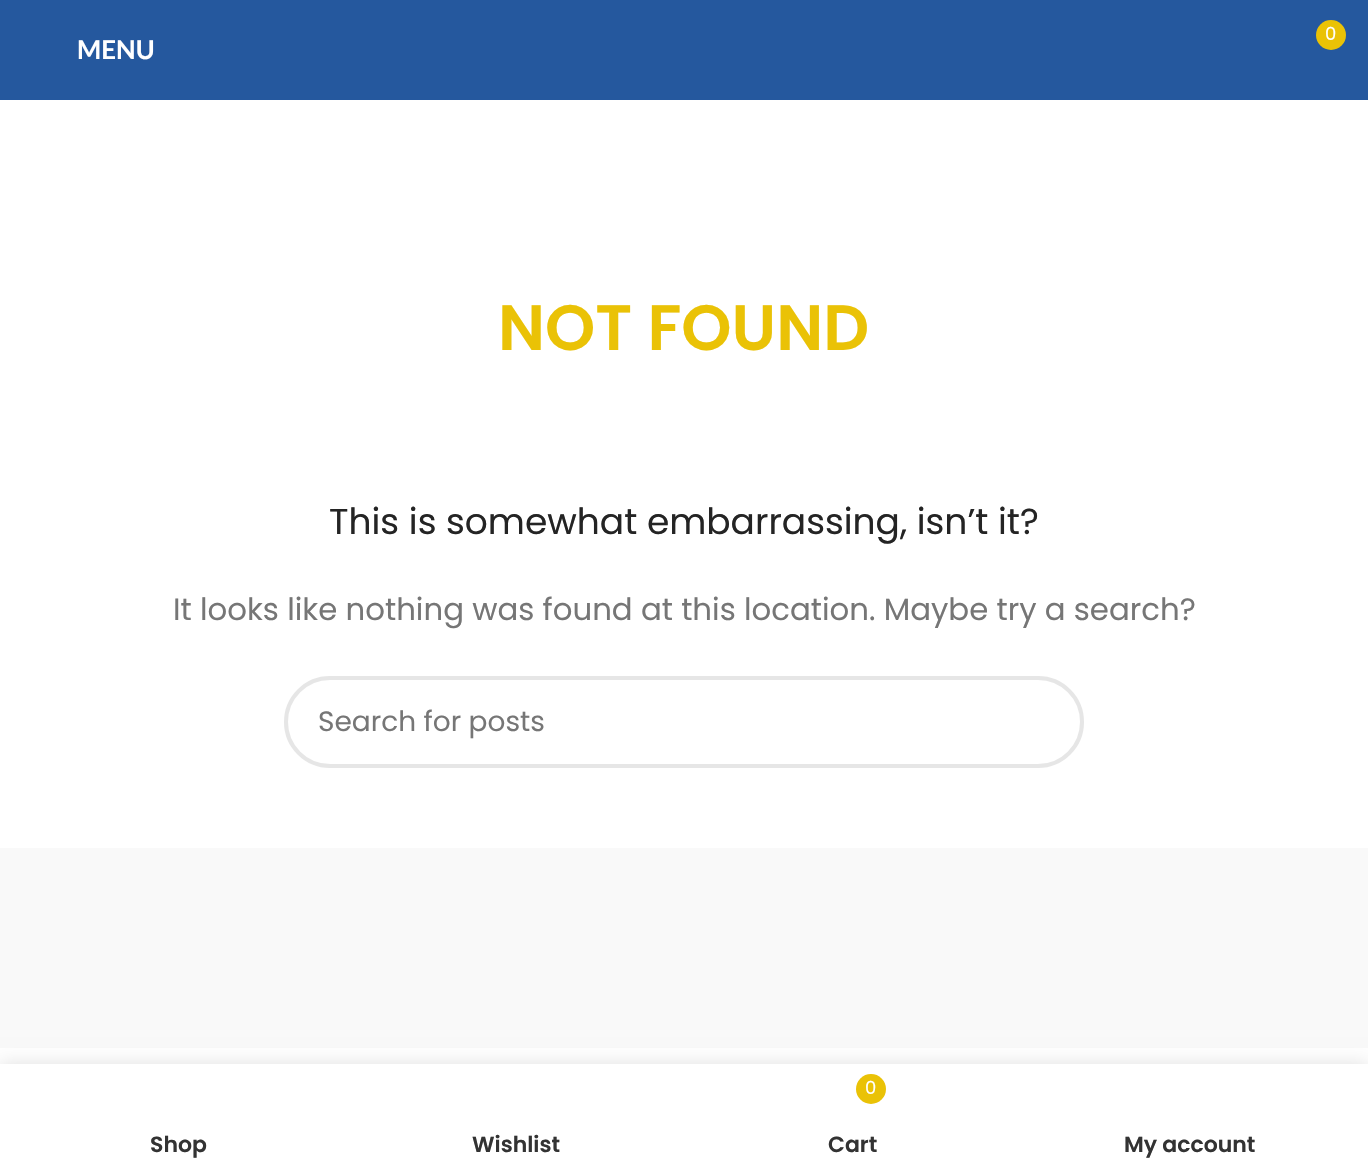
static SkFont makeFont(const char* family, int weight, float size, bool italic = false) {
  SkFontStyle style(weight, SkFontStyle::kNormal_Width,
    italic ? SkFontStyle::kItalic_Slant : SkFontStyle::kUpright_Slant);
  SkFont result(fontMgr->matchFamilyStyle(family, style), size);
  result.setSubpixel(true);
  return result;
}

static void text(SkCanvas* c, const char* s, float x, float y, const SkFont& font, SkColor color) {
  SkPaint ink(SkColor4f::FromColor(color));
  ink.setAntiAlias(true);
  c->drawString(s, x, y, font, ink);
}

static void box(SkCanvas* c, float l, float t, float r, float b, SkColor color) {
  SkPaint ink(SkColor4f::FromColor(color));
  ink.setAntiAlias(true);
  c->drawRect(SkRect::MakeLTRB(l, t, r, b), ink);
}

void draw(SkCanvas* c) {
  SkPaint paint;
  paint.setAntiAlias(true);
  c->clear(0xffffffff);
  box(c, 0, 0, 1368, 100, 0xff25589e);
  paint.setColor(0xffeac206);
  c->drawCircle(1331, 35, 15, paint);
  SkFont face1 = makeFont("Poppins", 400, 18);
  text(c, "0", 1325, 40, face1, 0xffffffff);
  SkFont face2 = makeFont("Lato", 700, 26);
  text(c, "MENU", 77, 59, face2, 0xffffffff);
  SkFont face3 = makeFont("Poppins", 600, 64);
  text(c, "NOT FOUND", 498, 350, face3, 0xffeac206);
  SkFont face4 = makeFont("Poppins", 400, 36);
  text(c, "This is somewhat embarrassing, isn’t it?", 329, 534, face4, 0xff242424);
  SkFont face5 = makeFont("Poppins", 400, 30.8f);
  text(c, "It looks like nothing was found at this location. Maybe try a search?", 173, 620, face5, 0xff767676);
  paint.setStyle(SkPaint::kStroke_Style);
  paint.setStrokeWidth(4);
  paint.setColor(0xffe6e6e6);
  c->drawRoundRect(SkRect::MakeLTRB(286, 678, 1082, 766), 44, 44, paint);
  SkFont face6 = makeFont("Poppins", 400, 28);
  text(c, "Search for posts", 318, 731, face6, 0xff767676);
  box(c, 0, 848, 1368, 1048, 0xfff9f9f9);
  paint.setStyle(SkPaint::kFill_Style);
  paint.setColor(0x1f000000);
  paint.setMaskFilter(SkMaskFilter::MakeBlur(kNormal_SkBlurStyle, 9));
  c->drawRect(SkRect::MakeLTRB(0, 1064, 1368, 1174), paint);
  paint.setMaskFilter(nullptr);
  box(c, 0, 1064, 1368, 1173, 0xffffffff);
  SkFont face7 = makeFont("Poppins", 600, 22);
  text(c, "Shop", 150, 1152, face7, 0xff333333);
  text(c, "Wishlist", 472, 1152, face7, 0xff333333);
  paint.setColor(0xffeac206);
  c->drawCircle(871, 1089, 15, paint);
  text(c, "0", 865, 1094, face1, 0xffffffff);
  text(c, "Cart", 828, 1152, face7, 0xff333333);
  text(c, "My account", 1124, 1152, face7, 0xff333333);
}
